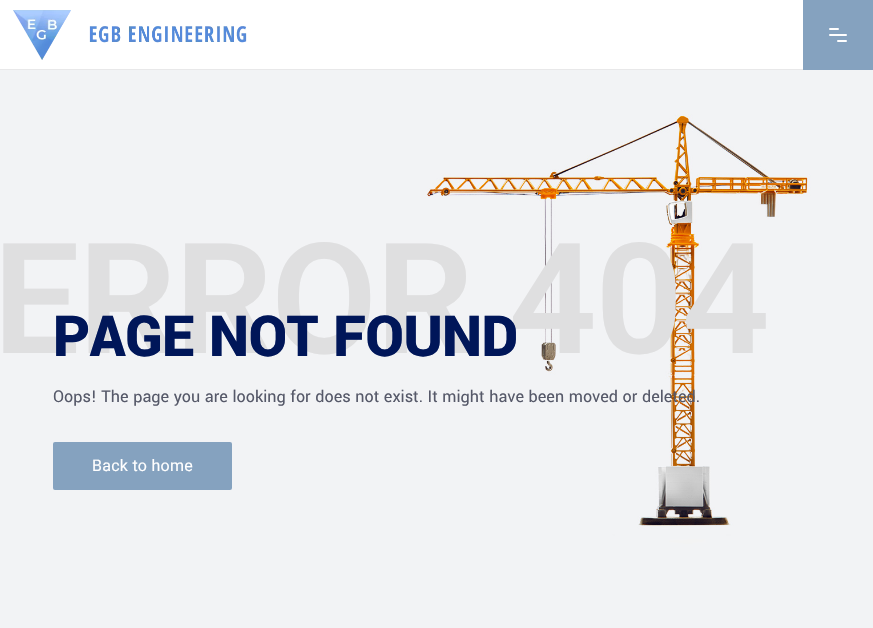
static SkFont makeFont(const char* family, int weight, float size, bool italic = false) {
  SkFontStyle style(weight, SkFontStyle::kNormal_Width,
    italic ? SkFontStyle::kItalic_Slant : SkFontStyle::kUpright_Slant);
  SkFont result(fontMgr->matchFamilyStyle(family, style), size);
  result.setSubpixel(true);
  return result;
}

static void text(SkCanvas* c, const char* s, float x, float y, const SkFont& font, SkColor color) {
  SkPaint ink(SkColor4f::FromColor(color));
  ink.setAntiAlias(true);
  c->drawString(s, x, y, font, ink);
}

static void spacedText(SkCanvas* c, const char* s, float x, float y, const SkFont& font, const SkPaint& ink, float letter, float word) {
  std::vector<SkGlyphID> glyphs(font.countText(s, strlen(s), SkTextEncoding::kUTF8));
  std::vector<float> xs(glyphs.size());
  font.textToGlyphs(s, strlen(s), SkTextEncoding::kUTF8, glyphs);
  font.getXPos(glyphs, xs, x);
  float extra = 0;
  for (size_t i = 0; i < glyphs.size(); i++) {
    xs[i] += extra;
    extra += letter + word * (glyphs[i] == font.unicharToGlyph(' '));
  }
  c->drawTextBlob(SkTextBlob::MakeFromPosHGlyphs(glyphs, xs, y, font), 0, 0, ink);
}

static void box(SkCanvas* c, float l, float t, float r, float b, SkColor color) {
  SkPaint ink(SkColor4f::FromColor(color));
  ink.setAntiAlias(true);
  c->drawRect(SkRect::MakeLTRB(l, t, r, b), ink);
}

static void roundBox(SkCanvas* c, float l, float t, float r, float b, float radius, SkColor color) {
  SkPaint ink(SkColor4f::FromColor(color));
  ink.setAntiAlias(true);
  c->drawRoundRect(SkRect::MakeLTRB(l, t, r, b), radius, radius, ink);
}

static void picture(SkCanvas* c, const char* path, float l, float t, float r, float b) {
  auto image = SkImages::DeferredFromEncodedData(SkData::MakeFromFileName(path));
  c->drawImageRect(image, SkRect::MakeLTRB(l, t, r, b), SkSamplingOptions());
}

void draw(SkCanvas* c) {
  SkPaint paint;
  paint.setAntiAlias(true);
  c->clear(0xffffffff);
  box(c, 0, 69, 803, 70, 0xffe8e8e9);
  picture(c, "img_01.png", 13, 10, 247, 60);
  box(c, 803, 0, 873, 70, 0xff85a2bf);
  roundBox(c, 829, 28, 839, 30, 1, 0xffffffff);
  roundBox(c, 829, 34, 847, 36, 1, 0xffffffff);
  roundBox(c, 837, 40, 847, 42, 1, 0xffffffff);
  picture(c, "img_02.png", 0, 70, 873, 628);
  SkFont face1 = makeFont("Roboto", 600, 154);
  paint.setColor(0xffdfdfe0);
  spacedText(c, "ERROR 404", -7, 353, face1, paint, -1.5f, 0);
  SkFont face2 = makeFont("Yantramanav", 900, 63);
  paint.setColor(0xff001659);
  spacedText(c, "PAGE NOT FOUND", 53, 356, face2, paint, -0.6f, 0);
  SkFont face3 = makeFont("Yantramanav", 400, 18);
  text(c, "Oops! The page you are looking for does not exist. It might have been moved or deleted.", 53, 402, face3, 0xff565969);
  roundBox(c, 53, 442, 232, 490, 2, 0xff85a2bf);
  SkFont face4 = makeFont("Roboto", 400, 16);
  paint.setColor(0xffffffff);
  spacedText(c, "Back to home", 92, 471, face4, paint, 0.25f, 0);
}
